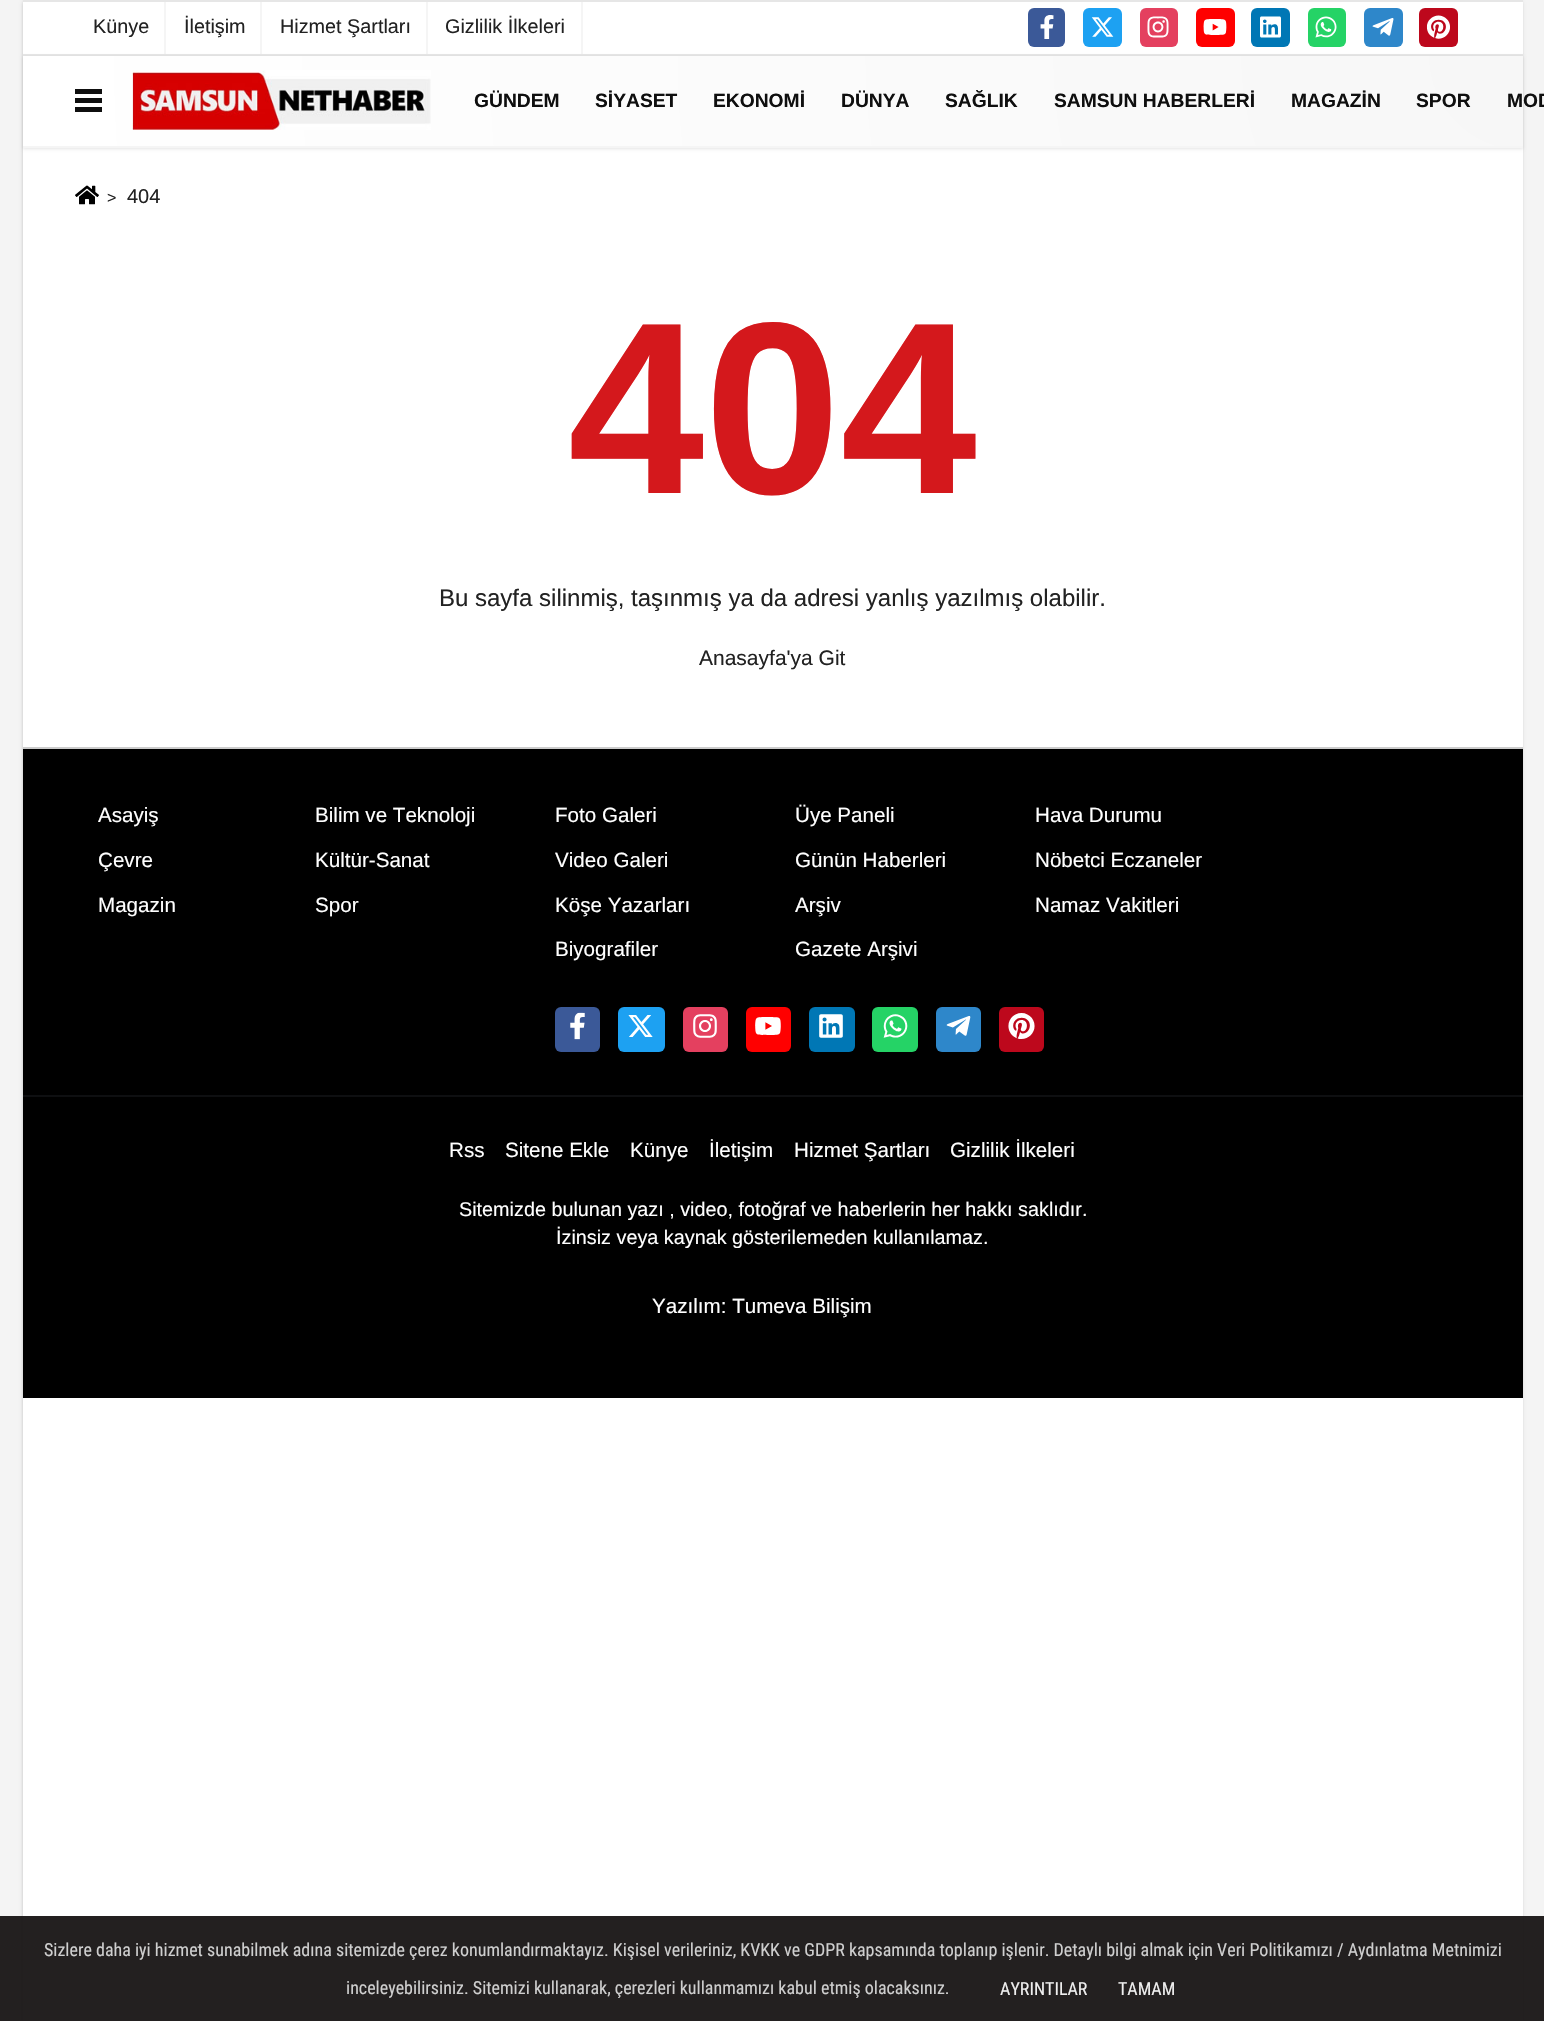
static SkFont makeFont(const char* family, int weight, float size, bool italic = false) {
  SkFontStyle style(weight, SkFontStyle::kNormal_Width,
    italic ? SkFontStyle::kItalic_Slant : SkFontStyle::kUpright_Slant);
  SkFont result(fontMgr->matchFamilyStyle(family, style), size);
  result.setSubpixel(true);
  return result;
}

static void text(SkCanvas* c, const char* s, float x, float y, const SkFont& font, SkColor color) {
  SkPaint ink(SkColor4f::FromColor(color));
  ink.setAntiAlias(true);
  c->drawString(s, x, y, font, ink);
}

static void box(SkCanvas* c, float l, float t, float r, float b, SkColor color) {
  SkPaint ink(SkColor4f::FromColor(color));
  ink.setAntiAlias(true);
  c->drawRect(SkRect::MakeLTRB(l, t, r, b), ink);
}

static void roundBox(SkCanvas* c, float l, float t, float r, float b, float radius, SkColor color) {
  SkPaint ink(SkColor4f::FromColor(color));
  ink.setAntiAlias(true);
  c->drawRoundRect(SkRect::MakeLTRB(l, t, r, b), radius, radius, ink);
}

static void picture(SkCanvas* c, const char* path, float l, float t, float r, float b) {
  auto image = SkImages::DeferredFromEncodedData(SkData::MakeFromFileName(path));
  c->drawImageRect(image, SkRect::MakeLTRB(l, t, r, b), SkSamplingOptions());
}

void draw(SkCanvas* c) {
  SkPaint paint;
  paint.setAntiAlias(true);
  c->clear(0xfff4f4f4);
  paint.setColor(0x59000000);
  paint.setMaskFilter(SkMaskFilter::MakeBlur(kNormal_SkBlurStyle, 2));
  c->drawRect(SkRect::MakeLTRB(24, 2, 1521, 2021), paint);
  paint.setMaskFilter(nullptr);
  box(c, 23, 2, 1523, 2021, 0xffffffff);
  box(c, 23, 0, 1523, 2, 0xffe6e6e6);
  box(c, 164, 2, 166, 54, 0xfff5f5f5);
  SkFont face1 = makeFont("Liberation Sans", 400, 19.8f);
  text(c, "Künye", 93, 33, face1, 0xff222222);
  box(c, 260, 2, 262, 54, 0xfff5f5f5);
  text(c, "İletişim", 184, 33, face1, 0xff222222);
  box(c, 426, 2, 428, 54, 0xfff5f5f5);
  text(c, "Hizmet Şartları", 280, 33, face1, 0xff222222);
  box(c, 581, 2, 583, 54, 0xfff5f5f5);
  text(c, "Gizlilik İlkeleri", 445, 33, face1, 0xff222222);
  roundBox(c, 1028, 8, 1065, 47, 6, 0xff3b5998);
  picture(c, "img_01.png", 1040, 15, 1054, 39);
  roundBox(c, 1083, 8, 1122, 47, 6, 0xff1da1f2);
  picture(c, "img_02.png", 1091, 17, 1114, 37);
  roundBox(c, 1140, 8, 1178, 47, 6, 0xffe4405f);
  picture(c, "img_03.png", 1147, 16, 1169, 38);
  roundBox(c, 1196, 8, 1235, 47, 6, 0xffff0000);
  picture(c, "img_04.png", 1203, 19, 1227, 35);
  roundBox(c, 1251, 8, 1290, 47, 6, 0xff0077b5);
  picture(c, "img_05.png", 1260, 16, 1281, 38);
  roundBox(c, 1308, 8, 1346, 47, 6, 0xff25d366);
  picture(c, "img_06.png", 1315, 16, 1337, 38);
  roundBox(c, 1364, 8, 1403, 47, 6, 0xff2e87ca);
  picture(c, "img_07.png", 1372, 18, 1394, 36);
  roundBox(c, 1419, 8, 1458, 47, 6, 0xffbd081c);
  picture(c, "img_08.png", 1426, 15, 1450, 39);
  box(c, 23, 54, 1523, 56, 0xffe6e6e6);
  paint.setColor(0x1a000000);
  paint.setMaskFilter(SkMaskFilter::MakeBlur(kNormal_SkBlurStyle, 1.5f));
  c->drawRect(SkRect::MakeLTRB(23, 57, 1523, 149), paint);
  paint.setMaskFilter(nullptr);
  {
    const SkColor colors[] = {0xfff7f7f7, 0xffffffff};
    const float stops[] = {0, 1};
    paint.setShader(SkGradientShader::MakeRadial({1523, 56}, 1503, colors, stops, 2, SkTileMode::kClamp));
    paint.setAlpha(255);
  }
  c->drawRect(SkRect::MakeLTRB(23, 56, 1523, 146), paint);
  box(c, 23, 146, 1523, 148, 0xfff5f5f5);
  box(c, 75, 89, 102, 94, 0xff0f0f0f);
  box(c, 75, 98, 102, 103, 0xff0f0f0f);
  box(c, 75, 107, 102, 112, 0xff0f0f0f);
  picture(c, "img_09.png", 132, 70, 431, 130);
  SkFont face2 = makeFont("Liberation Sans", 700, 19.25f);
  text(c, "GÜNDEM", 474, 107, face2, 0xff0f0f0f);
  text(c, "SİYASET", 595, 107, face2, 0xff0f0f0f);
  text(c, "EKONOMİ", 713, 107, face2, 0xff0f0f0f);
  text(c, "DÜNYA", 841, 107, face2, 0xff0f0f0f);
  text(c, "SAĞLIK", 945, 107, face2, 0xff0f0f0f);
  text(c, "SAMSUN HABERLERİ", 1054, 107, face2, 0xff0f0f0f);
  text(c, "MAGAZİN", 1291, 107, face2, 0xff0f0f0f);
  text(c, "SPOR", 1416, 107, face2, 0xff0f0f0f);
  text(c, "MOD", 1507, 107, face2, 0xff0f0f0f);
  picture(c, "img_10.png", 75, 185, 99, 205);
  SkFont face3 = makeFont("Liberation Sans", 400, 16);
  text(c, ">", 107, 203, face3, 0xff222222);
  SkFont face4 = makeFont("Liberation Sans", 400, 20);
  text(c, "404", 127, 203, face4, 0xff222222);
  SkFont face5 = makeFont("Liberation Sans", 700, 245);
  text(c, "404", 568, 493, face5, 0xffd4181c);
  SkFont face6 = makeFont("Liberation Sans", 400, 24);
  text(c, "Bu sayfa silinmiş, taşınmış ya da adresi yanlış yazılmış olabilir.", 439, 606, face6, 0xff222222);
  SkFont face7 = makeFont("Liberation Sans", 400, 21);
  text(c, "Anasayfa'ya Git", 699, 665, face7, 0xff222222);
  box(c, 23, 749, 1523, 1398, 0xff000000);
  box(c, 23, 747, 1523, 749, 0xffcccccc);
  SkFont face8 = makeFont("Liberation Sans", 400, 20.6f);
  text(c, "Asayiş", 98, 822, face8, 0xffffffff);
  text(c, "Bilim ve Teknoloji", 315, 822, face8, 0xffffffff);
  text(c, "Çevre", 98, 867, face8, 0xffffffff);
  text(c, "Kültür-Sanat", 315, 867, face8, 0xffffffff);
  text(c, "Magazin", 98, 912, face8, 0xffffffff);
  text(c, "Spor", 315, 912, face8, 0xffffffff);
  text(c, "Foto Galeri", 555, 822, face8, 0xffffffff);
  text(c, "Video Galeri", 555, 867, face8, 0xffffffff);
  text(c, "Köşe Yazarları", 555, 912, face8, 0xffffffff);
  text(c, "Biyografiler", 555, 956, face8, 0xffffffff);
  text(c, "Üye Paneli", 795, 822, face8, 0xffffffff);
  text(c, "Günün Haberleri", 795, 867, face8, 0xffffffff);
  text(c, "Arşiv", 795, 912, face8, 0xffffffff);
  text(c, "Gazete Arşivi", 795, 956, face8, 0xffffffff);
  text(c, "Hava Durumu", 1035, 822, face8, 0xffffffff);
  text(c, "Nöbetci Eczaneler", 1035, 867, face8, 0xffffffff);
  text(c, "Namaz Vakitleri", 1035, 912, face8, 0xffffffff);
  roundBox(c, 555, 1007, 600, 1052, 6, 0xff3b5998);
  picture(c, "img_11.png", 570, 1012, 585, 1040);
  roundBox(c, 618, 1007, 665, 1052, 6, 0xff1da1f2);
  picture(c, "img_12.png", 628, 1015, 653, 1037);
  roundBox(c, 683, 1007, 728, 1052, 6, 0xffe4405f);
  picture(c, "img_13.png", 693, 1014, 717, 1038);
  roundBox(c, 746, 1007, 791, 1052, 6, 0xffff0000);
  picture(c, "img_14.png", 755, 1017, 781, 1035);
  roundBox(c, 809, 1007, 855, 1052, 6, 0xff0077b5);
  picture(c, "img_15.png", 819, 1014, 843, 1038);
  roundBox(c, 872, 1007, 918, 1052, 6, 0xff25d366);
  picture(c, "img_16.png", 883, 1014, 908, 1038);
  roundBox(c, 936, 1007, 981, 1052, 6, 0xff2e87ca);
  picture(c, "img_17.png", 946, 1016, 971, 1036);
  roundBox(c, 999, 1007, 1044, 1052, 6, 0xffbd081c);
  picture(c, "img_18.png", 1008, 1013, 1035, 1039);
  box(c, 23, 1095, 1523, 1097, 0xff0e0f11);
  text(c, "Rss", 449, 1157, face8, 0xffffffff);
  text(c, "Sitene Ekle", 505, 1157, face8, 0xffffffff);
  text(c, "Künye", 630, 1157, face8, 0xffffffff);
  text(c, "İletişim", 709, 1157, face8, 0xffffffff);
  text(c, "Hizmet Şartları", 794, 1157, face8, 0xffffffff);
  text(c, "Gizlilik İlkeleri", 950, 1157, face8, 0xffffffff);
  text(c, "Sitemizde bulunan yazı , video, fotoğraf ve haberlerin her hakkı saklıdır.", 459, 1216, face1, 0xffffffff);
  text(c, "İzinsiz veya kaynak gösterilemeden kullanılamaz.", 556, 1244, face1, 0xffffffff);
  text(c, "Yazılım: Tumeva Bilişim", 652, 1313, face8, 0xffffffff);
  box(c, 0, 1916, 1544, 2021, 0xf2171414);
  SkFont face9 = makeFont("Roboto Condensed", 400, 18);
  text(c, "Sizlere daha iyi hizmet sunabilmek adına sitemizde çerez konumlandırmaktayız. Kişisel verileriniz, KVKK ve GDPR kapsamında toplanıp işlenir. Detaylı bilgi almak için Veri Politikamızı / Aydınlatma Metnimizi", 44, 1956, face9, 0xffcfcfcf);
  text(c, "inceleyebilirsiniz. Sitemizi kullanarak, çerezleri kullanmamızı kabul etmiş olacaksınız.", 346, 1994, face9, 0xffcfcfcf);
  text(c, "AYRINTILAR", 1000, 1995, face9, 0xffefefef);
  text(c, "TAMAM", 1118, 1995, face9, 0xffefefef);
}
